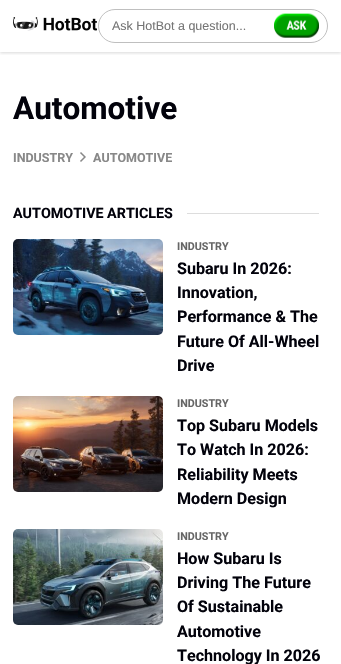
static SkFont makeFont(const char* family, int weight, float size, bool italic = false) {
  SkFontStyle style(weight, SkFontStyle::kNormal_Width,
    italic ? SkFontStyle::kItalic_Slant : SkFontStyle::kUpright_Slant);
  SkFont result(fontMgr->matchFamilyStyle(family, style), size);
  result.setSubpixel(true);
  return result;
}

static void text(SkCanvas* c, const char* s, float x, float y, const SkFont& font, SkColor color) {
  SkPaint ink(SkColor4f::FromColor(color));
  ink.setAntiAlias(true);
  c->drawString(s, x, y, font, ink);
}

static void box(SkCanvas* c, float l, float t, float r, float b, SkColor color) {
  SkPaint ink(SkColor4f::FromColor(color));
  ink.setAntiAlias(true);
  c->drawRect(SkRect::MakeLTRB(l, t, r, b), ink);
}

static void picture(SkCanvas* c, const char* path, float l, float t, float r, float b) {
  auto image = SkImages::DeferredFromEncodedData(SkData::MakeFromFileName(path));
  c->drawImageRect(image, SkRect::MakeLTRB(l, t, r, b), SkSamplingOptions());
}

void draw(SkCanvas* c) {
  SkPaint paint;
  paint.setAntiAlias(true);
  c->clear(0xffffffff);
  c->save();
  c->clipRect(SkRect::MakeLTRB(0, 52, 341, 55));
  paint.setColor(0x26000000);
  paint.setMaskFilter(SkMaskFilter::MakeBlur(kNormal_SkBlurStyle, 1.5f));
  c->drawRect(SkRect::MakeLTRB(0, 1, 341, 53), paint);
  paint.setMaskFilter(nullptr);
  c->restore();
  picture(c, "img_01.png", 13, 17, 97, 31);
  paint.setStyle(SkPaint::kStroke_Style);
  paint.setStrokeWidth(1);
  paint.setColor(0xffbfbfbf);
  c->drawRoundRect(SkRect::MakeLTRB(98.5f, 9.5f, 327.5f, 42.5f), 16.5f, 16.5f, paint);
  SkFont face1 = makeFont("Liberation Sans", 400, 12.5f);
  text(c, "Ask HotBot a question...", 112, 30, face1, 0xff757575);
  picture(c, "img_02.png", 274, 13, 319, 38);
  SkFont face2 = makeFont("Roboto", 700, 31.5f);
  text(c, "Automotive", 13, 119, face2, 0xff02020b);
  SkFont face3 = makeFont("Roboto", 700, 12.5f);
  text(c, "INDUSTRY", 13, 162, face3, 0xff888888);
  picture(c, "img_03.png", 80, 152, 86, 162);
  text(c, "AUTOMOTIVE", 93, 162, face3, 0xff888888);
  SkFont face4 = makeFont("Roboto", 700, 14.3f);
  text(c, "AUTOMOTIVE ARTICLES", 13, 218, face4, 0xff02020b);
  box(c, 187, 213, 319, 214, 0xffdddddd);
  picture(c, "img_04.png", 13, 239, 163, 335);
  SkFont face5 = makeFont("Roboto", 700, 10.75f);
  text(c, "INDUSTRY", 177, 250, face5, 0xff666666);
  SkFont face6 = makeFont("Roboto", 700, 16.1f);
  text(c, "Subaru In 2026:", 177, 274, face6, 0xff02020b);
  text(c, "Innovation,", 177, 298, face6, 0xff02020b);
  text(c, "Performance & The", 177, 322, face6, 0xff02020b);
  text(c, "Future Of All-Wheel", 177, 347, face6, 0xff02020b);
  text(c, "Drive", 177, 371, face6, 0xff02020b);
  picture(c, "img_05.png", 13, 396, 163, 492);
  text(c, "INDUSTRY", 177, 407, face5, 0xff666666);
  text(c, "Top Subaru Models", 177, 431, face6, 0xff02020b);
  text(c, "To Watch In 2026:", 177, 455, face6, 0xff02020b);
  text(c, "Reliability Meets", 177, 480, face6, 0xff02020b);
  text(c, "Modern Design", 177, 504, face6, 0xff02020b);
  picture(c, "img_06.png", 13, 529, 163, 625);
  text(c, "INDUSTRY", 177, 540, face5, 0xff666666);
  text(c, "How Subaru Is", 177, 564, face6, 0xff02020b);
  text(c, "Driving The Future", 177, 588, face6, 0xff02020b);
  text(c, "Of Sustainable", 177, 612, face6, 0xff02020b);
  text(c, "Automotive", 177, 637, face6, 0xff02020b);
  text(c, "Technology In 2026", 177, 661, face6, 0xff02020b);
}
